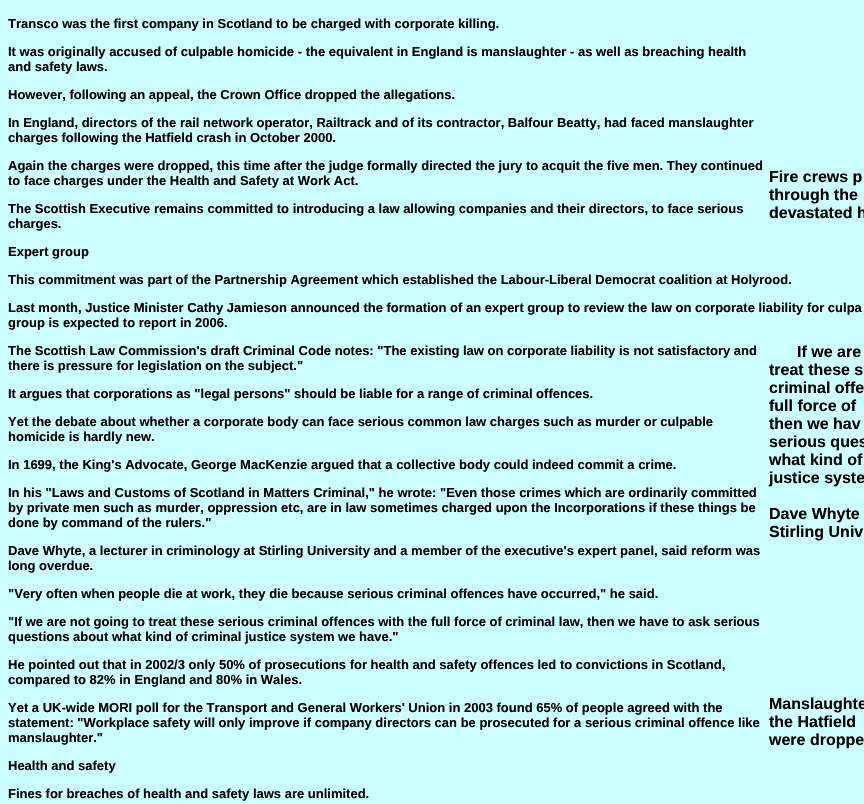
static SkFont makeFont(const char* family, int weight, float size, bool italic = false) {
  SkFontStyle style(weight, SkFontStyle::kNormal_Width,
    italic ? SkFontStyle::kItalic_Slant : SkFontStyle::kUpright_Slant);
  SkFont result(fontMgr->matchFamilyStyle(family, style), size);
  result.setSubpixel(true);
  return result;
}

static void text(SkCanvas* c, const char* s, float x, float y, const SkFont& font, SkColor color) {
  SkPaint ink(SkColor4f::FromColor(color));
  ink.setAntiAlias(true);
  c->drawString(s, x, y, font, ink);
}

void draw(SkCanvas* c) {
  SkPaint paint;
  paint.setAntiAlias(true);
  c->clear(0xffccffff);
  SkFont face1 = makeFont("Liberation Sans", 700, 13);
  text(c, "Transco was the first company in Scotland to be charged with corporate killing.", 8, 28, face1, 0xff000000);
  text(c, "It was originally accused of culpable homicide - the equivalent in England is manslaughter - as well as breaching health", 8, 56, face1, 0xff000000);
  text(c, "and safety laws.", 8, 71, face1, 0xff000000);
  text(c, "However, following an appeal, the Crown Office dropped the allegations.", 8, 99, face1, 0xff000000);
  text(c, "In England, directors of the rail network operator, Railtrack and of its contractor, Balfour Beatty, had faced manslaughter", 8, 127, face1, 0xff000000);
  text(c, "charges following the Hatfield crash in October 2000.", 8, 142, face1, 0xff000000);
  text(c, "Again the charges were dropped, this time after the judge formally directed the jury to acquit the five men. They continued", 8, 170, face1, 0xff000000);
  text(c, "to face charges under the Health and Safety at Work Act.", 8, 185, face1, 0xff000000);
  SkFont face2 = makeFont("Liberation Sans", 700, 16);
  text(c, "Fire crews p", 769, 182, face2, 0xff000000);
  text(c, "through the", 769, 200, face2, 0xff000000);
  text(c, "devastated h", 769, 218, face2, 0xff000000);
  text(c, "The Scottish Executive remains committed to introducing a law allowing companies and their directors, to face serious", 8, 213, face1, 0xff000000);
  text(c, "charges.", 8, 228, face1, 0xff000000);
  text(c, "Expert group", 8, 256, face1, 0xff000000);
  text(c, "This commitment was part of the Partnership Agreement which established the Labour-Liberal Democrat coalition at Holyrood.", 8, 284, face1, 0xff000000);
  text(c, "Last month, Justice Minister Cathy Jamieson announced the formation of an expert group to review the law on corporate liability for culpa", 8, 312, face1, 0xff000000);
  text(c, "group is expected to report in 2006.", 8, 327, face1, 0xff000000);
  text(c, "The Scottish Law Commission's draft Criminal Code notes: \"The existing law on corporate liability is not satisfactory and", 8, 355, face1, 0xff000000);
  text(c, "there is pressure for legislation on the subject.\"", 8, 370, face1, 0xff000000);
  text(c, "If we are", 797, 357, face2, 0xff000000);
  text(c, "treat these s", 769, 375, face2, 0xff000000);
  text(c, "criminal offe", 769, 393, face2, 0xff000000);
  text(c, "full force of", 769, 411, face2, 0xff000000);
  text(c, "then we hav", 769, 429, face2, 0xff000000);
  text(c, "serious ques", 769, 447, face2, 0xff000000);
  text(c, "what kind of", 769, 465, face2, 0xff000000);
  text(c, "justice syste", 769, 483, face2, 0xff000000);
  text(c, "Dave Whyte", 769, 519, face2, 0xff000000);
  text(c, "Stirling Univ", 769, 537, face2, 0xff000000);
  text(c, "It argues that corporations as \"legal persons\" should be liable for a range of criminal offences.", 8, 398, face1, 0xff000000);
  text(c, "Yet the debate about whether a corporate body can face serious common law charges such as murder or culpable", 8, 426, face1, 0xff000000);
  text(c, "homicide is hardly new.", 8, 441, face1, 0xff000000);
  text(c, "In 1699, the King's Advocate, George MacKenzie argued that a collective body could indeed commit a crime.", 8, 469, face1, 0xff000000);
  text(c, "In his \"Laws and Customs of Scotland in Matters Criminal,\" he wrote: \"Even those crimes which are ordinarily committed", 8, 497, face1, 0xff000000);
  text(c, "by private men such as murder, oppression etc, are in law sometimes charged upon the Incorporations if these things be", 8, 512, face1, 0xff000000);
  text(c, "done by command of the rulers.\"", 8, 527, face1, 0xff000000);
  text(c, "Dave Whyte, a lecturer in criminology at Stirling University and a member of the executive's expert panel, said reform was", 8, 555, face1, 0xff000000);
  text(c, "long overdue.", 8, 570, face1, 0xff000000);
  text(c, "\"Very often when people die at work, they die because serious criminal offences have occurred,\" he said.", 8, 598, face1, 0xff000000);
  text(c, "\"If we are not going to treat these serious criminal offences with the full force of criminal law, then we have to ask serious", 8, 626, face1, 0xff000000);
  text(c, "questions about what kind of criminal justice system we have.\"", 8, 641, face1, 0xff000000);
  text(c, "He pointed out that in 2002/3 only 50% of prosecutions for health and safety offences led to convictions in Scotland,", 8, 669, face1, 0xff000000);
  text(c, "compared to 82% in England and 80% in Wales.", 8, 684, face1, 0xff000000);
  text(c, "Yet a UK-wide MORI poll for the Transport and General Workers' Union in 2003 found 65% of people agreed with the", 8, 712, face1, 0xff000000);
  text(c, "statement: \"Workplace safety will only improve if company directors can be prosecuted for a serious criminal offence like", 8, 727, face1, 0xff000000);
  text(c, "manslaughter.\"", 8, 742, face1, 0xff000000);
  text(c, "Manslaughte", 769, 709, face2, 0xff000000);
  text(c, "the Hatfield", 769, 727, face2, 0xff000000);
  text(c, "were droppe", 769, 745, face2, 0xff000000);
  text(c, "Health and safety", 8, 770, face1, 0xff000000);
  text(c, "Fines for breaches of health and safety laws are unlimited.", 8, 798, face1, 0xff000000);
}
